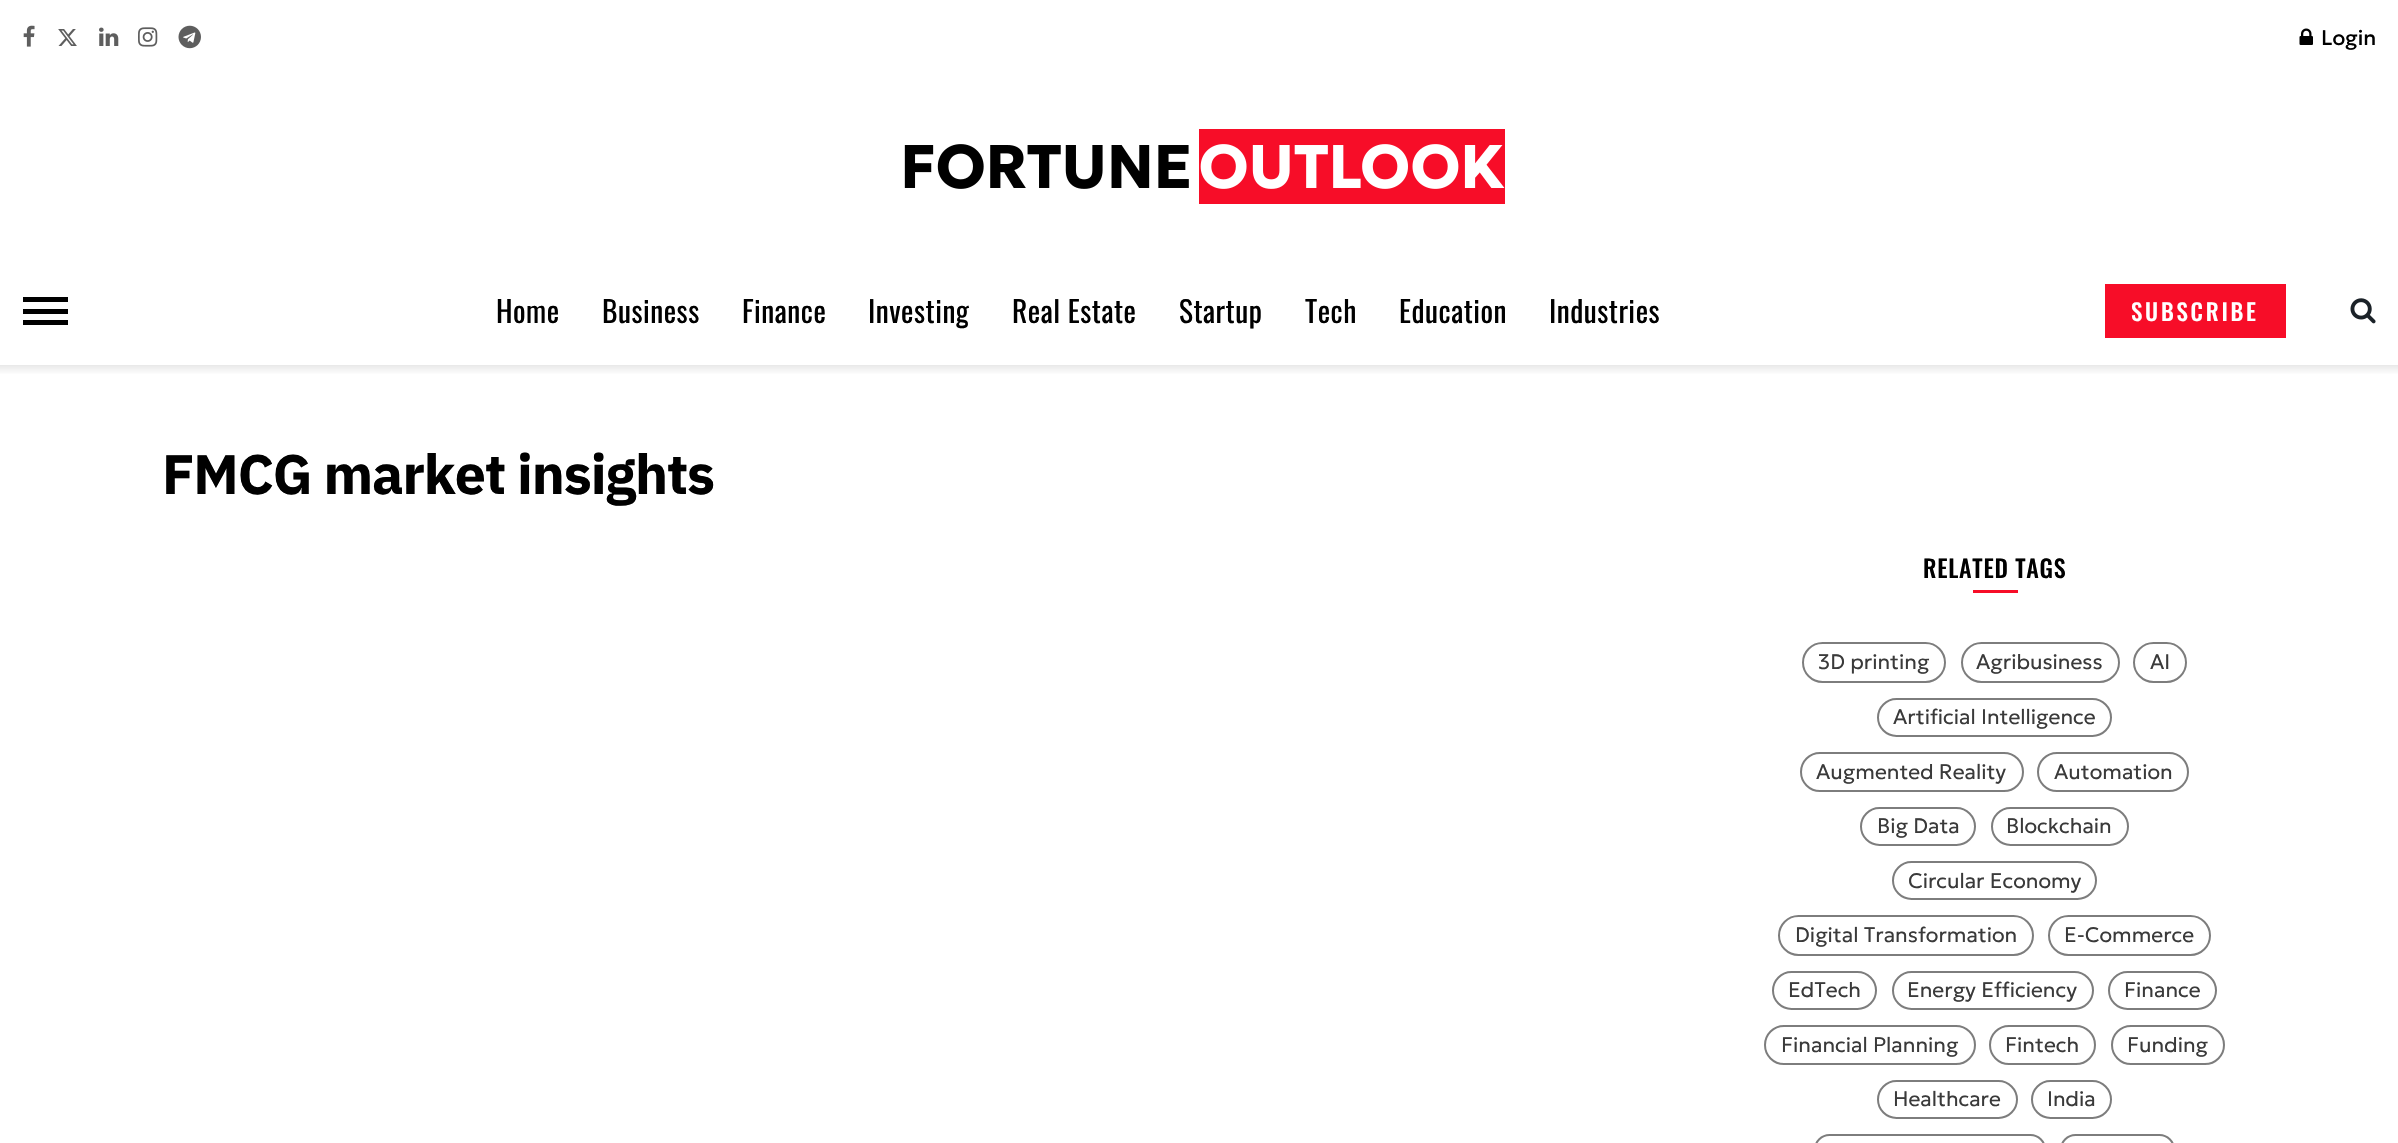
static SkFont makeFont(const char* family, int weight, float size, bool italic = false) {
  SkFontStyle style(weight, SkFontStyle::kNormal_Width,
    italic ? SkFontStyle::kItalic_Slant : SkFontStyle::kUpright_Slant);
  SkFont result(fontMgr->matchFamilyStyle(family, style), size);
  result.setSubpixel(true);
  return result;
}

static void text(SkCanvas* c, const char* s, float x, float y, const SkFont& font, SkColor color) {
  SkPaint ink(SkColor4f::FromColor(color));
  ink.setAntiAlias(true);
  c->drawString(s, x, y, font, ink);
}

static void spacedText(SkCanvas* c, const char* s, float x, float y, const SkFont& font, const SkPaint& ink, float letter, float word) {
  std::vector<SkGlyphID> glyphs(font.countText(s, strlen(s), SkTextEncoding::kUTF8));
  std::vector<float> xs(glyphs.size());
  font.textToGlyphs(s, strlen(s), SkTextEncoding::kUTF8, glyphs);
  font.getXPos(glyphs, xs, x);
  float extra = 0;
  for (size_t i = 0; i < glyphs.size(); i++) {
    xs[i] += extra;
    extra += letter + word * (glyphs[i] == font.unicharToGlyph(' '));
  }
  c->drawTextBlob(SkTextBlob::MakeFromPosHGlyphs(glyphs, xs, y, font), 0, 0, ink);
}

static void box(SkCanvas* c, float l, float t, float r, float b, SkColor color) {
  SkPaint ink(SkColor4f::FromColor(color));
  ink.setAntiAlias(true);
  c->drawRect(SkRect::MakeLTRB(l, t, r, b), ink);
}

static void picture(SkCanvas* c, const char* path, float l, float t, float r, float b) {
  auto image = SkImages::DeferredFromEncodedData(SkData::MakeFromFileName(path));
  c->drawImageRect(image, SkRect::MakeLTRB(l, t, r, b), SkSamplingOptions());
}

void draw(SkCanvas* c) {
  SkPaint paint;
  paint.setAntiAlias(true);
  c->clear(0xffffffff);
  picture(c, "img_01.png", 23, 25, 35, 47);
  picture(c, "img_02.png", 58, 29, 77, 46);
  picture(c, "img_03.png", 99, 27, 119, 46);
  picture(c, "img_04.png", 138, 27, 158, 47);
  picture(c, "img_05.png", 178, 25, 201, 49);
  picture(c, "img_06.png", 2299, 28, 2313, 45);
  SkFont face1 = makeFont("Geologica", 400, 21);
  text(c, "Login", 2321, 45, face1, 0xff000000);
  picture(c, "img_07.png", 904, 129, 1505, 204);
  box(c, 23, 297, 68, 302, 0xff000000);
  box(c, 23, 309, 68, 314, 0xff000000);
  box(c, 23, 320, 68, 325, 0xff000000);
  SkFont face2 = makeFont("Oswald", 400, 29.5f);
  paint.setColor(0xff000000);
  spacedText(c, "Home", 496, 323, face2, paint, 0.5f, 0);
  spacedText(c, "Business", 602, 323, face2, paint, 0.5f, 0);
  spacedText(c, "Finance", 742, 323, face2, paint, 0.5f, 0);
  spacedText(c, "Investing", 868, 323, face2, paint, 0.5f, 0);
  spacedText(c, "Real Estate", 1012, 323, face2, paint, 0.5f, 0);
  spacedText(c, "Startup", 1179, 323, face2, paint, 0.5f, 0);
  spacedText(c, "Tech", 1305, 323, face2, paint, 0.5f, 0);
  spacedText(c, "Education", 1399, 323, face2, paint, 0.5f, 0);
  spacedText(c, "Industries", 1549, 323, face2, paint, 0.5f, 0);
  box(c, 2105, 284, 2286, 338, 0xfff70d28);
  SkFont face3 = makeFont("Oswald", 500, 23);
  paint.setColor(0xffffffff);
  spacedText(c, "SUBSCRIBE", 2131, 321, face3, paint, 2.75f, 0);
  picture(c, "img_08.png", 2350, 298, 2376, 324);
  {
    const SkColor colors[] = {0xffe6e6e6, 0xffffffff};
    const float stops[] = {0, 1};
    const SkPoint ends[] = {{1199, 364}, {1199, 375}};
    paint.setShader(SkGradientShader::MakeLinear(ends, colors, stops, 2, SkTileMode::kClamp));
    paint.setAlpha(255);
  }
  c->drawRect(SkRect::MakeLTRB(0, 365, 2398, 374), paint);
  SkFont face4 = makeFont("IBM Plex Sans", 700, 55.5f);
  paint.setShader(nullptr);
  paint.setColor(0xff000000);
  spacedText(c, "FMCG market insights", 162, 494, face4, paint, -1.1f, 0);
  SkFont face5 = makeFont("Oswald", 500, 24);
  spacedText(c, "RELATED TAGS", 1923, 578, face5, paint, 0.75f, 0);
  box(c, 1973, 590, 2018, 593, 0xfff70d28);
  paint.setStyle(SkPaint::kStroke_Style);
  paint.setStrokeWidth(2);
  paint.setColor(0xff7d7d7d);
  c->drawRoundRect(SkRect::MakeLTRB(1803, 643, 1945, 682), 19.5f, 19.5f, paint);
  SkFont face6 = makeFont("Geologica", 300, 21);
  text(c, "3D printing", 1818, 669, face6, 0xff3a3a3a);
  c->drawRoundRect(SkRect::MakeLTRB(1962, 643, 2119, 682), 19.5f, 19.5f, paint);
  text(c, "Agribusiness", 1976, 669, face6, 0xff3a3a3a);
  c->drawRoundRect(SkRect::MakeLTRB(2134, 643, 2186, 682), 19.5f, 19.5f, paint);
  text(c, "AI", 2150, 669, face6, 0xff3a3a3a);
  c->drawRoundRect(SkRect::MakeLTRB(1878, 699, 2111, 736), 18.5f, 18.5f, paint);
  text(c, "Artificial Intelligence", 1893, 724, face6, 0xff3a3a3a);
  c->drawRoundRect(SkRect::MakeLTRB(1801, 753, 2023, 791), 19, 19, paint);
  text(c, "Augmented Reality", 1816, 779, face6, 0xff3a3a3a);
  c->drawRoundRect(SkRect::MakeLTRB(2038, 753, 2188, 791), 19, 19, paint);
  text(c, "Automation", 2054, 779, face6, 0xff3a3a3a);
  c->drawRoundRect(SkRect::MakeLTRB(1861, 808, 1975, 845), 18.5f, 18.5f, paint);
  text(c, "Big Data", 1877, 833, face6, 0xff3a3a3a);
  c->drawRoundRect(SkRect::MakeLTRB(1992, 808, 2128, 845), 18.5f, 18.5f, paint);
  text(c, "Blockchain", 2006, 833, face6, 0xff3a3a3a);
  c->drawRoundRect(SkRect::MakeLTRB(1893, 862, 2096, 899), 18.5f, 18.5f, paint);
  text(c, "Circular Economy", 1908, 888, face6, 0xff3a3a3a);
  c->drawRoundRect(SkRect::MakeLTRB(1779, 916, 2033, 955), 19.5f, 19.5f, paint);
  text(c, "Digital Transformation", 1795, 942, face6, 0xff3a3a3a);
  c->drawRoundRect(SkRect::MakeLTRB(2049, 916, 2210, 955), 19.5f, 19.5f, paint);
  text(c, "E-Commerce", 2064, 942, face6, 0xff3a3a3a);
  c->drawRoundRect(SkRect::MakeLTRB(1773, 972, 1876, 1009), 18.5f, 18.5f, paint);
  text(c, "EdTech", 1788, 997, face6, 0xff3a3a3a);
  c->drawRoundRect(SkRect::MakeLTRB(1893, 972, 2093, 1009), 18.5f, 18.5f, paint);
  text(c, "Energy Efficiency", 1907, 997, face6, 0xff3a3a3a);
  c->drawRoundRect(SkRect::MakeLTRB(2109, 972, 2216, 1009), 18.5f, 18.5f, paint);
  text(c, "Finance", 2124, 997, face6, 0xff3a3a3a);
  c->drawRoundRect(SkRect::MakeLTRB(1765, 1026, 1975, 1064), 19, 19, paint);
  text(c, "Financial Planning", 1781, 1052, face6, 0xff3a3a3a);
  c->drawRoundRect(SkRect::MakeLTRB(1990, 1026, 2095, 1064), 19, 19, paint);
  text(c, "Fintech", 2005, 1052, face6, 0xff3a3a3a);
  c->drawRoundRect(SkRect::MakeLTRB(2112, 1026, 2224, 1064), 19, 19, paint);
  text(c, "Funding", 2127, 1052, face6, 0xff3a3a3a);
  c->drawRoundRect(SkRect::MakeLTRB(1878, 1081, 2017, 1118), 18.5f, 18.5f, paint);
  text(c, "Healthcare", 1893, 1106, face6, 0xff3a3a3a);
  c->drawRoundRect(SkRect::MakeLTRB(2032, 1081, 2111, 1118), 18.5f, 18.5f, paint);
  text(c, "India", 2047, 1106, face6, 0xff3a3a3a);
  c->drawRoundRect(SkRect::MakeLTRB(1815, 1135, 2045, 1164), 18.5f, 18.5f, paint);
  c->drawRoundRect(SkRect::MakeLTRB(2061, 1135, 2174, 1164), 18.5f, 18.5f, paint);
}
